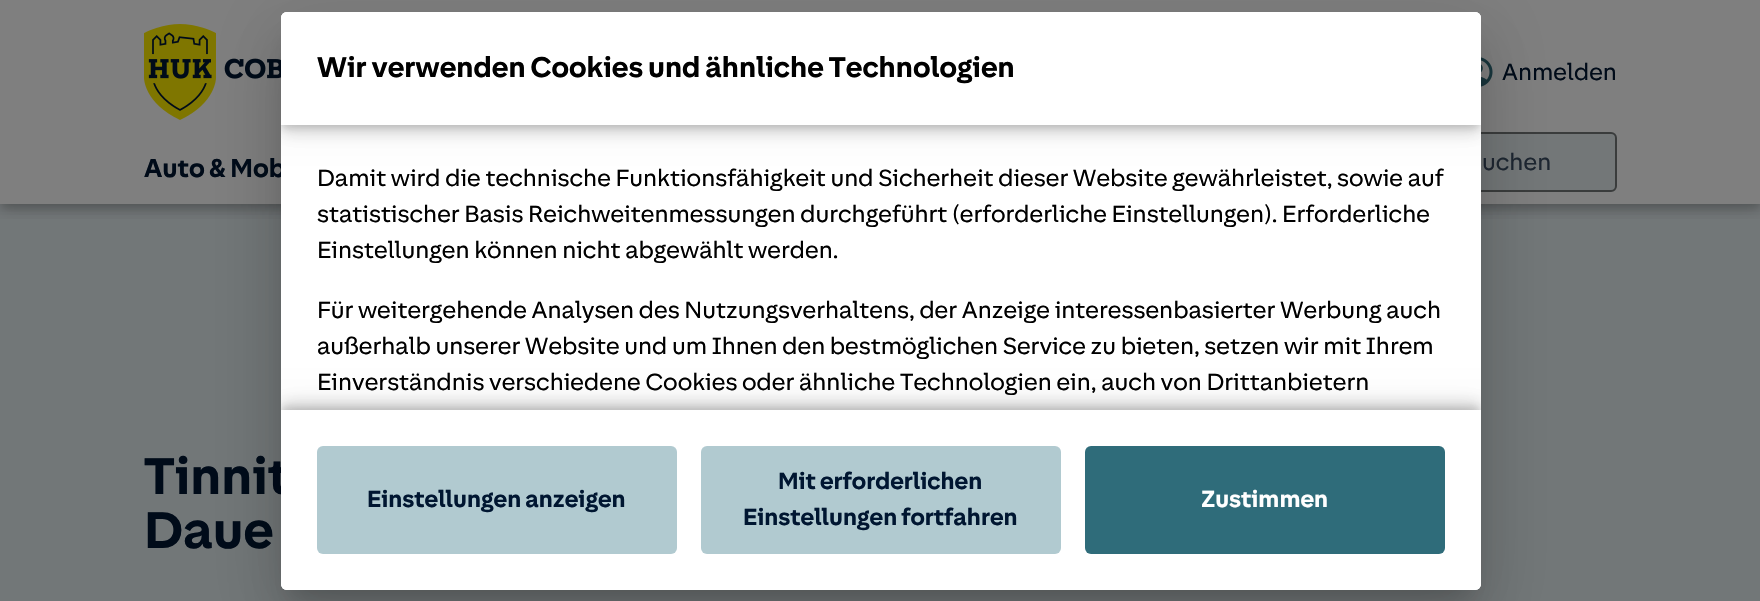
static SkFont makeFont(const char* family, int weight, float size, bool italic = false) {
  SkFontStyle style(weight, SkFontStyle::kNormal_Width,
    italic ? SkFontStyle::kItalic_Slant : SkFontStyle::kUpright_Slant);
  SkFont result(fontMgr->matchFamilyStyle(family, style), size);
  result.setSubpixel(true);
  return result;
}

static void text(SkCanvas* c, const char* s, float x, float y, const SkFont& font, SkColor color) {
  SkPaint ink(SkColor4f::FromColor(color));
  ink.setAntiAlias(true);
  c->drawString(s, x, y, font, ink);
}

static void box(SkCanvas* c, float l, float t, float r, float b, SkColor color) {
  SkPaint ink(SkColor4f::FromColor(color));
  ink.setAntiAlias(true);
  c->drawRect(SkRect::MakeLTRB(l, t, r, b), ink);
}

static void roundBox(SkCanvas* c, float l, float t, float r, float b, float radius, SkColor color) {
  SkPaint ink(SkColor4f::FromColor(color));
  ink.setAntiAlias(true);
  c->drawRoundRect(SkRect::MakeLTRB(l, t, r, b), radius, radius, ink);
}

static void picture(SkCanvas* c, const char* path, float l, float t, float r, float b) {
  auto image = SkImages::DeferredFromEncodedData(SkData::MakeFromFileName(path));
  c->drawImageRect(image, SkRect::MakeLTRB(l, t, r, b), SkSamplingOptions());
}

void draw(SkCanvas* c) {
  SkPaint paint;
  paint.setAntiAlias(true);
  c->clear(0xffffffff);
  box(c, 0, 204, 1760, 601, 0xffe5eef1);
  c->save();
  c->clipRect(SkRect::MakeLTRB(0, 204, 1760, 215));
  paint.setColor(0x14000000);
  paint.setMaskFilter(SkMaskFilter::MakeBlur(kNormal_SkBlurStyle, 13.5f));
  c->drawRect(SkRect::MakeLTRB(0, 2, 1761, 206), paint);
  paint.setMaskFilter(nullptr);
  c->restore();
  c->save();
  c->clipRect(SkRect::MakeLTRB(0, 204, 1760, 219));
  paint.setColor(0x1a000000);
  paint.setMaskFilter(SkMaskFilter::MakeBlur(kNormal_SkBlurStyle, 7.5f));
  c->drawRect(SkRect::MakeLTRB(0, 9, 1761, 213), paint);
  paint.setMaskFilter(nullptr);
  c->restore();
  c->save();
  c->clipRect(SkRect::MakeLTRB(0, 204, 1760, 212));
  paint.setColor(0x29000000);
  paint.setMaskFilter(SkMaskFilter::MakeBlur(kNormal_SkBlurStyle, 4));
  c->drawRect(SkRect::MakeLTRB(2, 6, 1760, 207), paint);
  paint.setMaskFilter(nullptr);
  c->restore();
  picture(c, "img_01.png", 144, 24, 281, 120);
  picture(c, "img_02.png", 1481, 57, 1493, 87);
  SkFont face1 = makeFont("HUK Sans", 400, 24);
  text(c, "Anmelden", 1502, 80, face1, 0xff001631);
  SkFont face2 = makeFont("HUK Sans", 700, 26.5f);
  text(c, "Auto & Mob", 144, 177, face2, 0xff001631);
  roundBox(c, 1251, 132, 1617, 192, 6, 0xffe7eff1);
  paint.setStyle(SkPaint::kStroke_Style);
  paint.setStrokeWidth(2);
  paint.setColor(0x80000000);
  c->drawRoundRect(SkRect::MakeLTRB(1252, 133, 1616, 191), 5, 5, paint);
  text(c, "uchen", 1482, 170, face1, 0xff3a4c61);
  SkFont face3 = makeFont("HUK Sans", 700, 53);
  text(c, "Tinnit", 144, 494, face3, 0xff001631);
  text(c, "Daue", 144, 548, face3, 0xff001631);
  paint.setStrokeWidth(1761);
  c->drawRoundRect(SkRect::MakeLTRB(-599.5f, -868.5f, 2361.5f, 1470.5f), 886.5f, 886.5f, paint);
  paint.setStyle(SkPaint::kFill_Style);
  paint.setColor(0x14000000);
  paint.setMaskFilter(SkMaskFilter::MakeBlur(kNormal_SkBlurStyle, 34.5f));
  c->drawRoundRect(SkRect::MakeLTRB(269, 14, 1493, 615), 18, 18, paint);
  paint.setMaskFilter(nullptr);
  paint.setColor(0x1a000000);
  paint.setMaskFilter(SkMaskFilter::MakeBlur(kNormal_SkBlurStyle, 28.5f));
  c->drawRoundRect(SkRect::MakeLTRB(276, 44, 1485, 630), 11, 11, paint);
  paint.setMaskFilter(nullptr);
  paint.setColor(0x29000000);
  paint.setMaskFilter(SkMaskFilter::MakeBlur(kNormal_SkBlurStyle, 11));
  c->drawRect(SkRect::MakeLTRB(291, 39, 1470, 596), paint);
  paint.setMaskFilter(nullptr);
  roundBox(c, 281, 12, 1481, 590, 6, 0xffffffff);
  roundBox(c, 281, 12, 1481, 125, 6, 0xffffffff);
  c->save();
  c->clipPath(SkPathBuilder().moveTo(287, 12).lineTo(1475, 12).cubicTo(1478.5f, 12, 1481, 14.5f, 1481, 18).lineTo(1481, 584).cubicTo(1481, 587.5f, 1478.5f, 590, 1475, 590).lineTo(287, 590).cubicTo(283.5f, 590, 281, 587.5f, 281, 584).lineTo(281, 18).cubicTo(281, 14.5f, 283.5f, 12, 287, 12).close().detach(), true);
  c->clipPath(SkPathBuilder(SkPathFillType::kEvenOdd).moveTo(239, 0).lineTo(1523, 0).lineTo(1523, 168).lineTo(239, 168).close().moveTo(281, 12).lineTo(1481, 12).lineTo(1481, 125).lineTo(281, 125).close().detach(), true);
  paint.setColor(0x14000000);
  paint.setMaskFilter(SkMaskFilter::MakeBlur(kNormal_SkBlurStyle, 13.5f));
  c->drawRect(SkRect::MakeLTRB(281, 14, 1481, 126), paint);
  paint.setMaskFilter(nullptr);
  c->restore();
  c->save();
  c->clipPath(SkPathBuilder().moveTo(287, 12).lineTo(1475, 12).cubicTo(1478.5f, 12, 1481, 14.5f, 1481, 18).lineTo(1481, 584).cubicTo(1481, 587.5f, 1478.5f, 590, 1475, 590).lineTo(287, 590).cubicTo(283.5f, 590, 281, 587.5f, 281, 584).lineTo(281, 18).cubicTo(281, 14.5f, 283.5f, 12, 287, 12).close().detach(), true);
  c->clipPath(SkPathBuilder(SkPathFillType::kEvenOdd).moveTo(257, 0).lineTo(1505, 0).lineTo(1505, 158).lineTo(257, 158).close().moveTo(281, 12).lineTo(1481, 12).lineTo(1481, 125).lineTo(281, 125).close().detach(), true);
  paint.setColor(0x1a000000);
  paint.setMaskFilter(SkMaskFilter::MakeBlur(kNormal_SkBlurStyle, 7.5f));
  c->drawRect(SkRect::MakeLTRB(281, 21, 1481, 134), paint);
  paint.setMaskFilter(nullptr);
  c->restore();
  c->save();
  c->clipPath(SkPathBuilder().moveTo(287, 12).lineTo(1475, 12).cubicTo(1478.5f, 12, 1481, 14.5f, 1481, 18).lineTo(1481, 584).cubicTo(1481, 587.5f, 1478.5f, 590, 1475, 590).lineTo(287, 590).cubicTo(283.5f, 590, 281, 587.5f, 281, 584).lineTo(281, 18).cubicTo(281, 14.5f, 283.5f, 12, 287, 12).close().detach(), true);
  c->clipPath(SkPathBuilder(SkPathFillType::kEvenOdd).moveTo(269, 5).lineTo(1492, 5).lineTo(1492, 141).lineTo(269, 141).close().moveTo(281, 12).lineTo(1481, 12).lineTo(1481, 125).lineTo(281, 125).close().detach(), true);
  paint.setColor(0x29000000);
  paint.setMaskFilter(SkMaskFilter::MakeBlur(kNormal_SkBlurStyle, 4));
  c->drawRect(SkRect::MakeLTRB(282, 18, 1479, 128), paint);
  paint.setMaskFilter(nullptr);
  c->restore();
  SkFont face4 = makeFont("HUK Sans", 700, 29.3f);
  text(c, "Wir verwenden Cookies und ähnliche Technologien", 317, 77, face4, 0xff000000);
  text(c, "Damit wird die technische Funktionsfähigkeit und Sicherheit dieser Website gewährleistet, sowie auf", 317, 186, face1, 0xff000000);
  text(c, "statistischer Basis Reichweitenmessungen durchgeführt (erforderliche Einstellungen). Erforderliche", 317, 222, face1, 0xff000000);
  text(c, "Einstellungen können nicht abgewählt werden.", 317, 258, face1, 0xff000000);
  text(c, "Für weitergehende Analysen des Nutzungsverhaltens, der Anzeige interessenbasierter Werbung auch", 317, 318, face1, 0xff000000);
  text(c, "außerhalb unserer Website und um Ihnen den bestmöglichen Service zu bieten, setzen wir mit Ihrem", 317, 354, face1, 0xff000000);
  text(c, "Einverständnis verschiedene Cookies oder ähnliche Technologien ein, auch von Drittanbietern", 317, 390, face1, 0xff000000);
  roundBox(c, 281, 410, 1481, 590, 6, 0xffffffff);
  roundBox(c, 317, 446, 677, 554, 6, 0xffb1cad0);
  roundBox(c, 701, 446, 1061, 554, 6, 0xffb1cad0);
  roundBox(c, 1085, 446, 1445, 554, 6, 0xff2f6c7a);
  c->save();
  c->clipPath(SkPathBuilder().moveTo(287, 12).lineTo(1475, 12).cubicTo(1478.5f, 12, 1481, 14.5f, 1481, 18).lineTo(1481, 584).cubicTo(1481, 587.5f, 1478.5f, 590, 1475, 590).lineTo(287, 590).cubicTo(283.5f, 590, 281, 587.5f, 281, 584).lineTo(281, 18).cubicTo(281, 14.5f, 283.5f, 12, 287, 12).close().detach(), true);
  c->clipPath(SkPathBuilder(SkPathFillType::kEvenOdd).moveTo(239, 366).lineTo(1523, 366).lineTo(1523, 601).lineTo(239, 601).close().moveTo(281, 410).lineTo(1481, 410).lineTo(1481, 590).lineTo(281, 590).close().detach(), true);
  paint.setColor(0x14000000);
  paint.setMaskFilter(SkMaskFilter::MakeBlur(kNormal_SkBlurStyle, 13.5f));
  c->drawRect(SkRect::MakeLTRB(281, 408, 1481, 588), paint);
  paint.setMaskFilter(nullptr);
  c->restore();
  c->save();
  c->clipPath(SkPathBuilder().moveTo(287, 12).lineTo(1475, 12).cubicTo(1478.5f, 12, 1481, 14.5f, 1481, 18).lineTo(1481, 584).cubicTo(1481, 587.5f, 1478.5f, 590, 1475, 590).lineTo(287, 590).cubicTo(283.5f, 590, 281, 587.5f, 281, 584).lineTo(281, 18).cubicTo(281, 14.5f, 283.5f, 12, 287, 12).close().detach(), true);
  c->clipPath(SkPathBuilder(SkPathFillType::kEvenOdd).moveTo(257, 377).lineTo(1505, 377).lineTo(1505, 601).lineTo(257, 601).close().moveTo(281, 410).lineTo(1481, 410).lineTo(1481, 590).lineTo(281, 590).close().detach(), true);
  paint.setColor(0x1a000000);
  paint.setMaskFilter(SkMaskFilter::MakeBlur(kNormal_SkBlurStyle, 7.5f));
  c->drawRect(SkRect::MakeLTRB(281, 401, 1481, 581), paint);
  paint.setMaskFilter(nullptr);
  c->restore();
  c->save();
  c->clipPath(SkPathBuilder().moveTo(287, 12).lineTo(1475, 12).cubicTo(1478.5f, 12, 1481, 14.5f, 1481, 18).lineTo(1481, 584).cubicTo(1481, 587.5f, 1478.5f, 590, 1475, 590).lineTo(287, 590).cubicTo(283.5f, 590, 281, 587.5f, 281, 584).lineTo(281, 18).cubicTo(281, 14.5f, 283.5f, 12, 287, 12).close().detach(), true);
  c->clipPath(SkPathBuilder(SkPathFillType::kEvenOdd).moveTo(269, 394).lineTo(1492, 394).lineTo(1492, 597).lineTo(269, 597).close().moveTo(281, 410).lineTo(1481, 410).lineTo(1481, 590).lineTo(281, 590).close().detach(), true);
  paint.setColor(0x29000000);
  paint.setMaskFilter(SkMaskFilter::MakeBlur(kNormal_SkBlurStyle, 4));
  c->drawRect(SkRect::MakeLTRB(282, 407, 1479, 584), paint);
  paint.setMaskFilter(nullptr);
  c->restore();
  SkFont face5 = makeFont("HUK Sans", 700, 24);
  text(c, "Einstellungen anzeigen", 367, 507, face5, 0xff001631);
  text(c, "Mit erforderlichen", 778, 489, face5, 0xff001631);
  text(c, "Einstellungen fortfahren", 743, 525, face5, 0xff001631);
  text(c, "Zustimmen", 1201, 507, face5, 0xffffffff);
}
